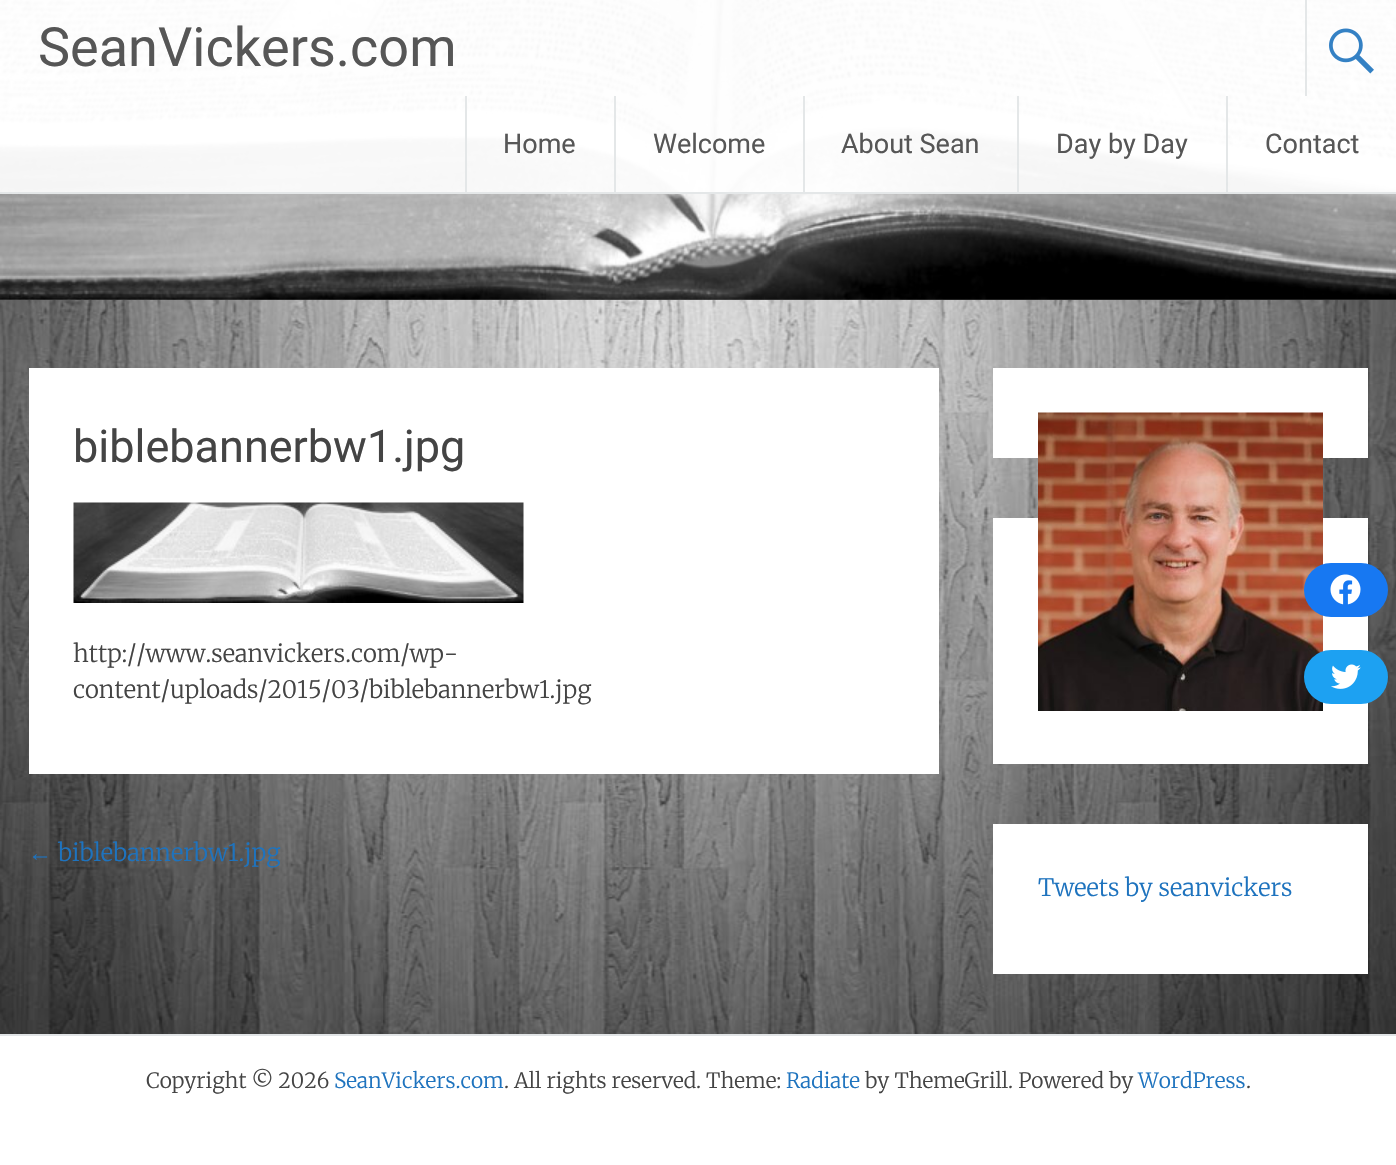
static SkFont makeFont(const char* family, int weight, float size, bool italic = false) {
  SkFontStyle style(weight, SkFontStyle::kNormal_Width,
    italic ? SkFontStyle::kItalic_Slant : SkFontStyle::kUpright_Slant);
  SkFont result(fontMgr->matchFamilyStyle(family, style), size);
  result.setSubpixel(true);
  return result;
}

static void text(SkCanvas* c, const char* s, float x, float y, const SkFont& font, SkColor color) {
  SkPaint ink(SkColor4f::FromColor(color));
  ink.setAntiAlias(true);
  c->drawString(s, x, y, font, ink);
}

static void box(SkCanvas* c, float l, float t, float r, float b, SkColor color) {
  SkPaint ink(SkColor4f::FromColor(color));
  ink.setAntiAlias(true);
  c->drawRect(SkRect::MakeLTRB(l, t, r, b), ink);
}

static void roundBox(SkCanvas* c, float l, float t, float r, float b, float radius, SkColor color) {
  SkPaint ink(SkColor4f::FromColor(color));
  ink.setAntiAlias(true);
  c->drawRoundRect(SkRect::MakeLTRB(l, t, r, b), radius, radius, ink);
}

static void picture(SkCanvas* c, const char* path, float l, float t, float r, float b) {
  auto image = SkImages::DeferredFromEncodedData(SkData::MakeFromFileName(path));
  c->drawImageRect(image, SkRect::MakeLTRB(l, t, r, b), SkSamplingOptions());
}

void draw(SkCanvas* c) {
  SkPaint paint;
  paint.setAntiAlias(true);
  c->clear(0xffffffff);
  picture(c, "img_01.png", 0, 0, 1396, 300);
  box(c, 0, 0, 1396, 194, 0xe6ffffff);
  box(c, 0, 192, 1396, 194, 0xe6e1e4e6);
  SkFont face1 = makeFont("Roboto", 400, 54);
  text(c, "SeanVickers.com", 38, 66, face1, 0xff565656);
  box(c, 1305, 0, 1307, 96, 0xe6e1e4e6);
  picture(c, "img_02.png", 1329, 28, 1374, 74);
  box(c, 465, 96, 467, 192, 0xe6e1e4e6);
  SkFont face2 = makeFont("Roboto", 400, 27);
  text(c, "Home", 503, 153, face2, 0xff565656);
  box(c, 614, 96, 616, 192, 0xe6e1e4e6);
  text(c, "Welcome", 653, 153, face2, 0xff565656);
  box(c, 803, 96, 805, 192, 0xe6e1e4e6);
  text(c, "About Sean", 841, 153, face2, 0xff565656);
  box(c, 1017, 96, 1019, 192, 0xe6e1e4e6);
  text(c, "Day by Day", 1056, 153, face2, 0xff565656);
  box(c, 1226, 96, 1228, 192, 0xe6e1e4e6);
  text(c, "Contact", 1265, 153, face2, 0xff565656);
  picture(c, "img_03.png", 0, 300, 1396, 1034);
  box(c, 29, 368, 939, 774, 0xffffffff);
  SkFont face3 = makeFont("Roboto", 400, 45);
  text(c, "biblebannerbw1.jpg", 73, 462, face3, 0xff444444);
  picture(c, "img_04.png", 73, 502, 524, 603);
  SkFont face4 = makeFont("Merriweather", 300, 24);
  text(c, "http://www.seanvickers.com/wp-", 73, 662, face4, 0xff444444);
  text(c, "content/uploads/2015/03/biblebannerbw1.jpg", 73, 698, face4, 0xff444444);
  SkFont face5 = makeFont("Liberation Serif", 400, 24);
  text(c, "←", 28, 861, face5, 0xff1e73be);
  text(c, "biblebannerbw1.jpg", 58, 861, face4, 0xff1e73be);
  box(c, 993, 368, 1368, 458, 0xffffffff);
  box(c, 993, 518, 1368, 764, 0xffffffff);
  picture(c, "img_05.png", 1038, 412, 1323, 711);
  roundBox(c, 1304, 563, 1388, 617, 27, 0xff1778f2);
  picture(c, "img_06.png", 1330, 574, 1361, 605);
  roundBox(c, 1304, 650, 1388, 704, 27, 0xff1da1f2);
  picture(c, "img_07.png", 1331, 664, 1361, 689);
  box(c, 993, 824, 1368, 974, 0xffffffff);
  text(c, "Tweets by seanvickers", 1038, 896, face4, 0xff1e73be);
  box(c, 0, 1034, 1396, 1036, 0xffe1e4e6);
  SkFont face6 = makeFont("Merriweather", 300, 21);
  text(c, "Copyright © 2026", 146, 1088, face6, 0xff444444);
  text(c, "SeanVickers.com", 334, 1088, face6, 0xff1e73be);
  text(c, ". All rights reserved. Theme:", 504, 1088, face6, 0xff444444);
  text(c, "Radiate", 786, 1088, face6, 0xff1e73be);
  text(c, "by ThemeGrill. Powered by", 865, 1088, face6, 0xff444444);
  text(c, "WordPress", 1138, 1088, face6, 0xff1e73be);
  text(c, ".", 1246, 1088, face6, 0xff444444);
}
